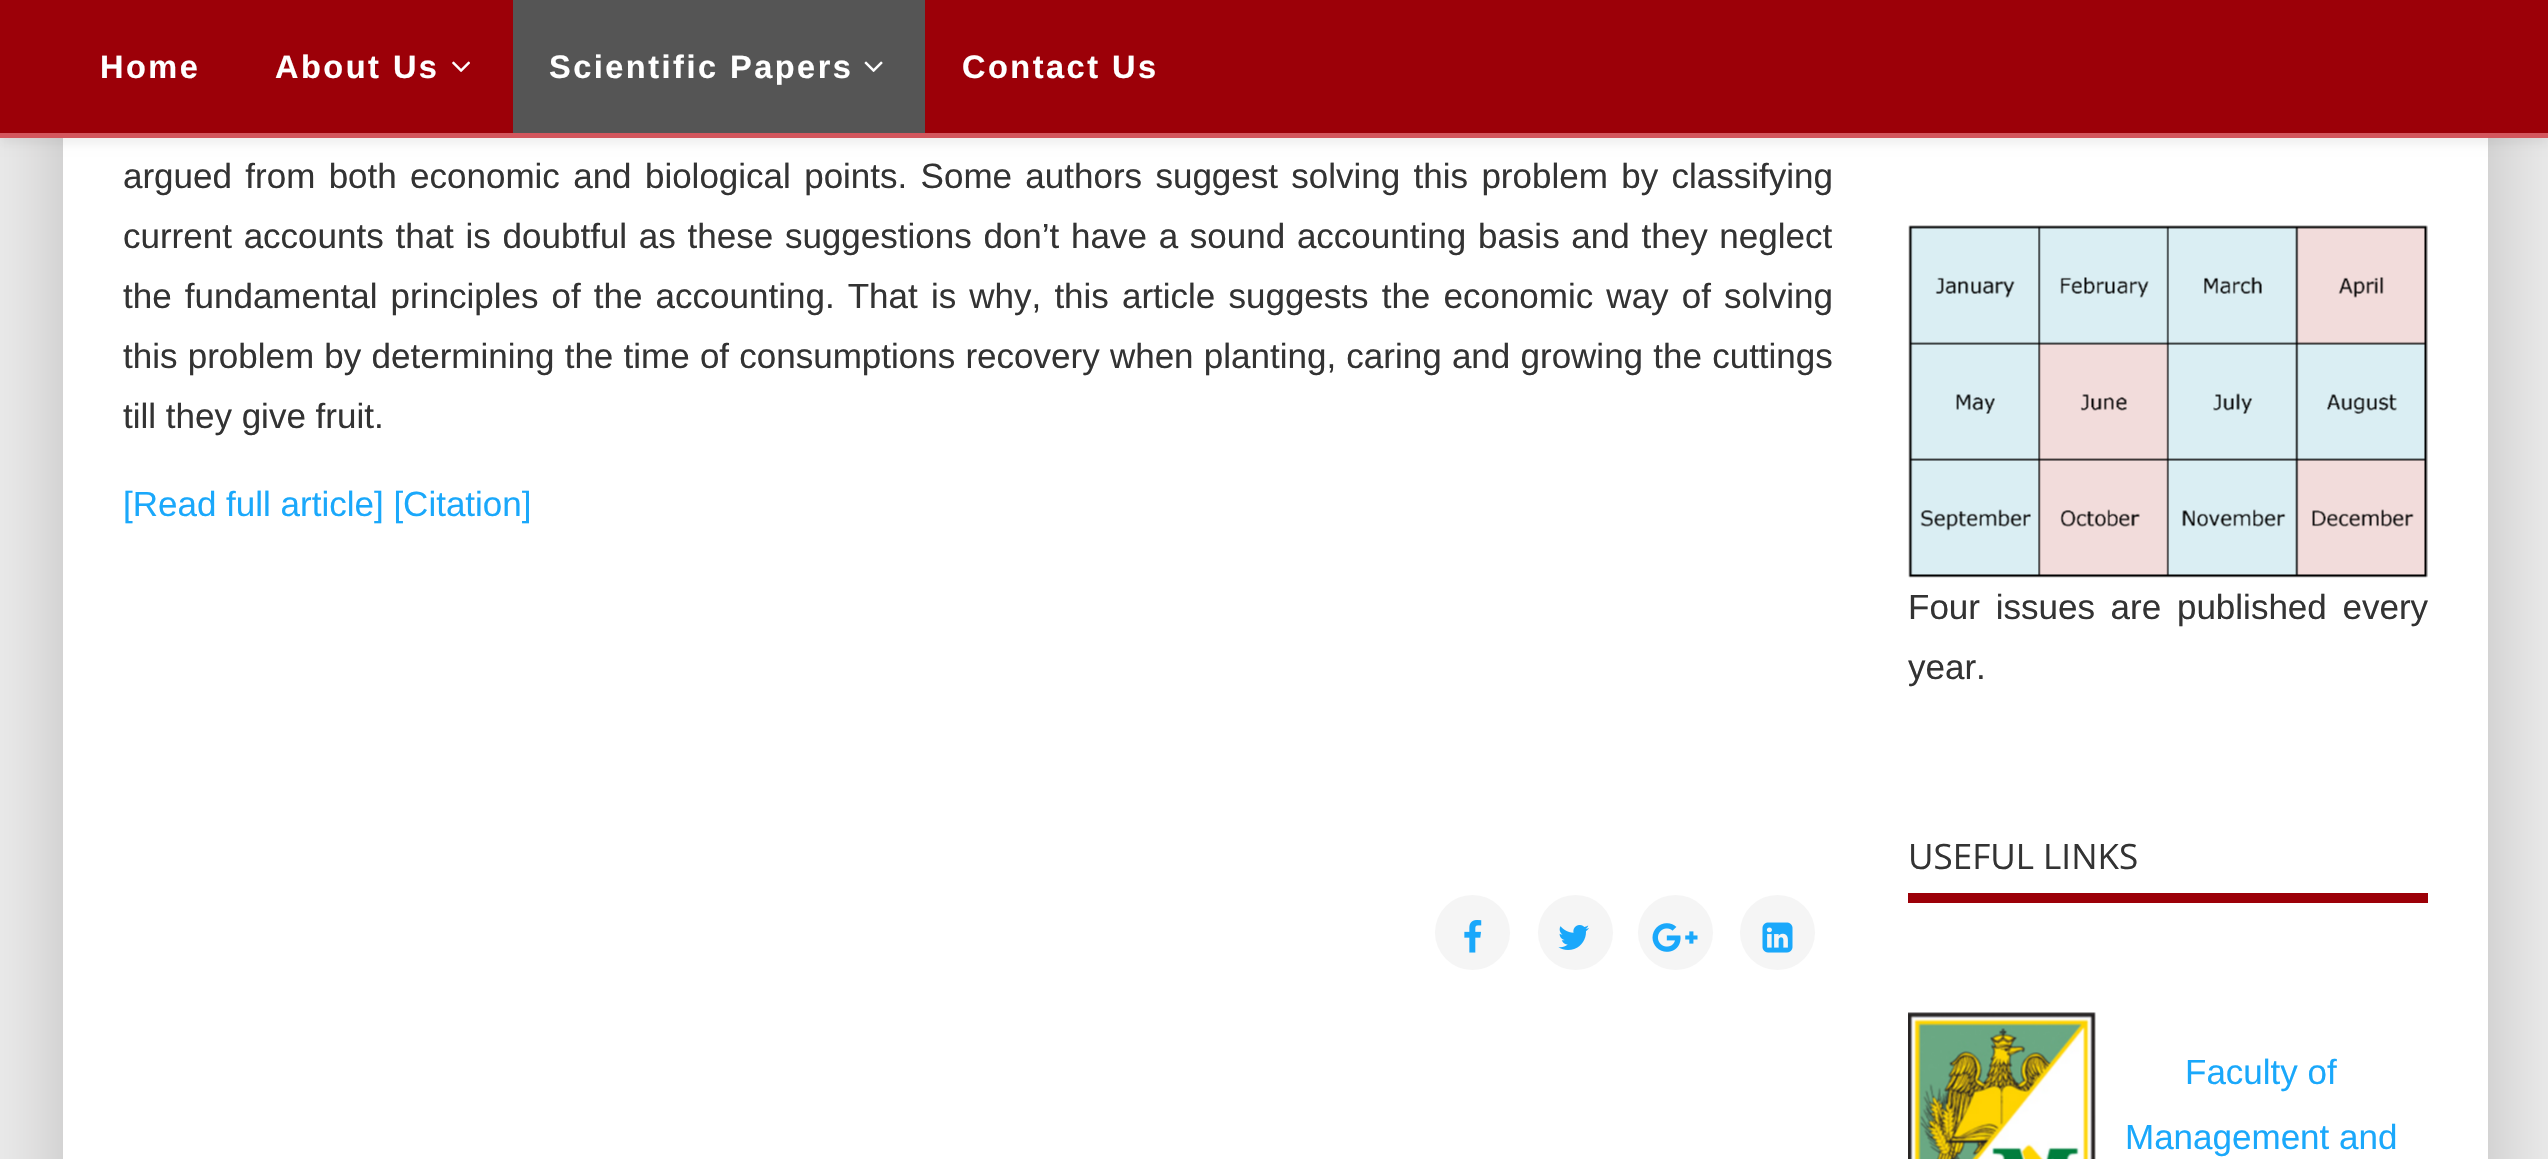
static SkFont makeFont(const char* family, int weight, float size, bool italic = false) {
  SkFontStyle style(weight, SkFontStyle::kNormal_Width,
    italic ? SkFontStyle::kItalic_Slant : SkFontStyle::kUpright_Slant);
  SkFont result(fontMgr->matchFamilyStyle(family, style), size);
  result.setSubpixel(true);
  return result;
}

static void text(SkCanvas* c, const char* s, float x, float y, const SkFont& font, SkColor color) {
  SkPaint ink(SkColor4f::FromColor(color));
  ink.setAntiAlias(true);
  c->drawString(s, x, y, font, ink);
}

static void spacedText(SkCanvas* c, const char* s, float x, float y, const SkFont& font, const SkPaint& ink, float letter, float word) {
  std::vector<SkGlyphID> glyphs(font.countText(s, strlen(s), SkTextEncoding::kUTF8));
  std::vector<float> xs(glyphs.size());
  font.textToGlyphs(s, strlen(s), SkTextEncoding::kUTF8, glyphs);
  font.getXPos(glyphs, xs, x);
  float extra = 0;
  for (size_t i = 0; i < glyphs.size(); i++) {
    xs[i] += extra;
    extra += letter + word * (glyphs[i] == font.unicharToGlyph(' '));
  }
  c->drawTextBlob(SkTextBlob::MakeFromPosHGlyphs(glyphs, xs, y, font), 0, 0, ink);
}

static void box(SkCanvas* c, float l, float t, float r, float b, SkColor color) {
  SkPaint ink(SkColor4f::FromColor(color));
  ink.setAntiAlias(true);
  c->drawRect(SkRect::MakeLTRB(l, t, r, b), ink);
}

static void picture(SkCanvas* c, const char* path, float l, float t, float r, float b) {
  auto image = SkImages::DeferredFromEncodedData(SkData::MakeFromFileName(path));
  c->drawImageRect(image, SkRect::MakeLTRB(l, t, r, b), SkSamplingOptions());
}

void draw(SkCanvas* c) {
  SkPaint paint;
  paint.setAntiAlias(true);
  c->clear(0xffeeeeee);
  paint.setColor(0xffbab9b9);
  paint.setMaskFilter(SkMaskFilter::MakeBlur(kNormal_SkBlurStyle, 47.5f));
  c->drawRect(SkRect::MakeLTRB(63, -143, 2488, 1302), paint);
  paint.setMaskFilter(nullptr);
  box(c, 63, 138, 2488, 1159, 0xffffffff);
  paint.setColor(0x0d000000);
  paint.setMaskFilter(SkMaskFilter::MakeBlur(kNormal_SkBlurStyle, 4));
  c->drawRect(SkRect::MakeLTRB(0, 8, 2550, 145), paint);
  paint.setMaskFilter(nullptr);
  box(c, 0, 0, 2548, 133, 0xff9c0008);
  box(c, 0, 133, 2548, 138, 0xffd3565d);
  SkFont face1 = makeFont("Liberation Sans", 700, 32.5f);
  paint.setColor(0xffffffff);
  spacedText(c, "Home", 100, 78, face1, paint, 2.5f, 0);
  spacedText(c, "About Us", 275, 78, face1, paint, 2.5f, 0);
  picture(c, "img_01.png", 452, 61, 470, 72);
  box(c, 513, 0, 925, 133, 0xff555555);
  spacedText(c, "Scientific Papers", 549, 78, face1, paint, 2.5f, 0);
  picture(c, "img_02.png", 864, 61, 883, 72);
  spacedText(c, "Contact Us", 962, 78, face1, paint, 2.5f, 0);
  SkFont face2 = makeFont("Liberation Sans", 400, 35);
  paint.setColor(0xff333333);
  spacedText(c, "argued from both economic and biological points. Some authors suggest solving this problem by classifying", 123, 188, face2, paint, 0, 3.6f);
  spacedText(c, "current accounts that is doubtful as these suggestions don’t have a sound accounting basis and they neglect", 123, 248, face2, paint, 0, 2);
  spacedText(c, "the fundamental principles of the accounting. That is why, this article suggests the economic way of solving", 123, 308, face2, paint, 0, 3.4f);
  spacedText(c, "this problem by determining the time of consumptions recovery when planting, caring and growing the cuttings", 123, 368, face2, paint, 0, 0.5f);
  text(c, "till they give fruit.", 123, 428, face2, 0xff333333);
  text(c, "[Read full article] [Citation]", 123, 516, face2, 0xff1aa8fb);
  paint.setColor(0xfff5f5f5);
  c->drawCircle(1472.5f, 932.5f, 37.5f, paint);
  picture(c, "img_03.png", 1464, 920, 1482, 953);
  c->drawCircle(1575.5f, 932.5f, 37.5f, paint);
  picture(c, "img_04.png", 1558, 925, 1589, 950);
  c->drawCircle(1675.5f, 932.5f, 37.5f, paint);
  picture(c, "img_05.png", 1652, 923, 1698, 952);
  c->drawCircle(1777.5f, 932.5f, 37.5f, paint);
  picture(c, "img_06.png", 1762, 922, 1793, 953);
  picture(c, "img_07.png", 1908, 225, 2428, 578);
  paint.setColor(0xff333333);
  spacedText(c, "Four issues are published every", 1908, 619, face2, paint, 0, 6);
  text(c, "year.", 1908, 679, face2, 0xff333333);
  box(c, 1908, 893, 2428, 903, 0xff9c0008);
  SkFont face3 = makeFont("Open Sans", 400, 35);
  text(c, "USEFUL LINKS", 1908, 869, face3, 0xff333333);
  picture(c, "img_08.png", 1908, 1012, 2096, 1159);
  text(c, "Faculty of", 2185, 1084, face2, 0xff1aa8fb);
  text(c, "Management and", 2125, 1149, face2, 0xff1aa8fb);
}
